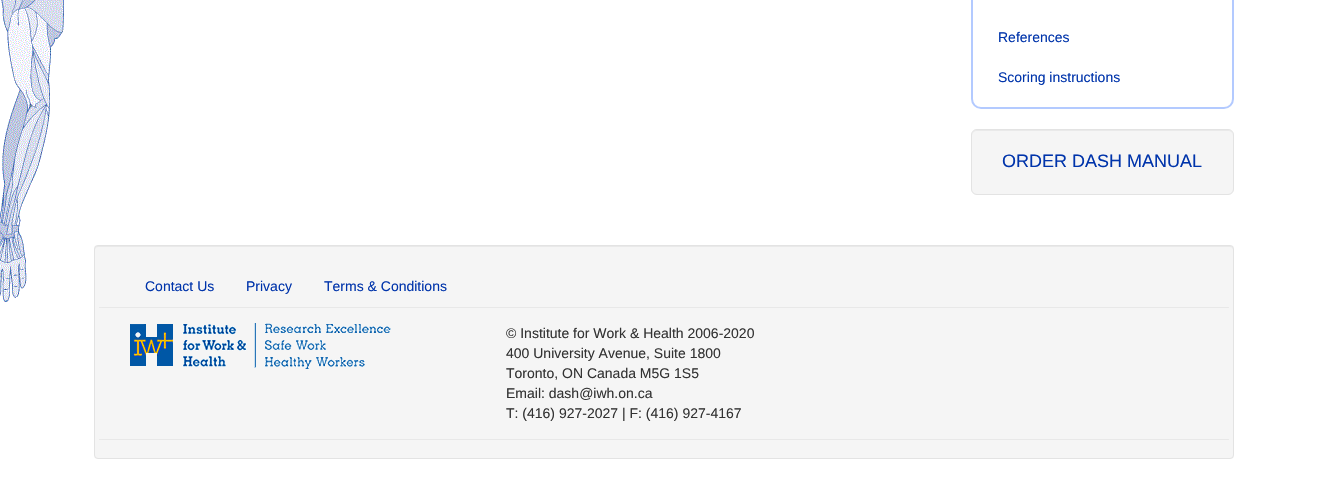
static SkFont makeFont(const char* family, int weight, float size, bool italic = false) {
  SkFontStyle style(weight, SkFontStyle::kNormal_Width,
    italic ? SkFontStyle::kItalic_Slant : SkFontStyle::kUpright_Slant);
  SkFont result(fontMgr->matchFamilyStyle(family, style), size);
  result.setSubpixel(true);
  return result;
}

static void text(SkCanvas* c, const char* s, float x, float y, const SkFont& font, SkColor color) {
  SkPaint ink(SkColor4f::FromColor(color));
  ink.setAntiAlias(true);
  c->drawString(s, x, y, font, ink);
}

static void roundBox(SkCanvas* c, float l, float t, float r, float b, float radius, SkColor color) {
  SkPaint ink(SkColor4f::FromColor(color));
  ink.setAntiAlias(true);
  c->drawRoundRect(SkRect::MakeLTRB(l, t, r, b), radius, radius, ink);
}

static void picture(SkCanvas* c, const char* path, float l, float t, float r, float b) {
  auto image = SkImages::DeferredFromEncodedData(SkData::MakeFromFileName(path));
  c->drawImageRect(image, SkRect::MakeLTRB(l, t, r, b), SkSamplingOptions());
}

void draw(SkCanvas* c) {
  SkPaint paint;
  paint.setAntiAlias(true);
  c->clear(0xffffffff);
  picture(c, "img_01.png", 0, 0, 64, 302);
  paint.setStyle(SkPaint::kStroke_Style);
  paint.setStrokeWidth(2);
  paint.setColor(0xffb3caff);
  c->drawRoundRect(SkRect::MakeLTRB(972, -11, 1233, 108), 9, 9, paint);
  SkFont face1 = makeFont("Liberation Sans", 400, 14);
  text(c, "References", 998, 42, face1, 0xff0034ab);
  text(c, "Scoring instructions", 998, 82, face1, 0xff0034ab);
  roundBox(c, 971, 129, 1234, 195, 6, 0xfff5f5f5);
  paint.setStyle(SkPaint::kFill_Style);
  paint.setColor(0xffe9e9e9);
  c->drawPath(SkPathBuilder().moveTo(977, 131).lineTo(1228, 131).cubicTo(1231, 131, 1233, 133, 1233, 136).cubicTo(1233, 133, 1231, 130, 1228, 130).lineTo(977, 130).cubicTo(974, 130, 972, 133, 972, 136).cubicTo(972, 133, 974, 131, 977, 131).close().detach(), paint);
  paint.setStyle(SkPaint::kStroke_Style);
  paint.setStrokeWidth(1);
  paint.setColor(0xffe3e3e3);
  c->drawRoundRect(SkRect::MakeLTRB(971.5f, 129.5f, 1233.5f, 194.5f), 5.5f, 5.5f, paint);
  SkFont face2 = makeFont("Liberation Sans", 400, 18);
  text(c, "ORDER DASH MANUAL", 1002, 167, face2, 0xff0034ab);
  roundBox(c, 94, 245, 1234, 459, 4, 0xfff5f5f5);
  paint.setStyle(SkPaint::kFill_Style);
  paint.setColor(0xffe9e9e9);
  c->drawPath(SkPathBuilder().moveTo(98, 247).lineTo(1230, 247).cubicTo(1232, 247, 1233, 248, 1233, 250).lineTo(1233, 249).cubicTo(1233, 247, 1232, 246, 1230, 246).lineTo(98, 246).cubicTo(96, 246, 95, 247, 95, 249).lineTo(95, 250).cubicTo(95, 248, 96, 247, 98, 247).close().detach(), paint);
  paint.setStyle(SkPaint::kStroke_Style);
  paint.setColor(0xffe3e3e3);
  c->drawRoundRect(SkRect::MakeLTRB(94.5f, 245.5f, 1233.5f, 458.5f), 3.5f, 3.5f, paint);
  c->save();
  c->clipRect(SkRect::MakeLTRB(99, 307, 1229, 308));
  paint.setStyle(SkPaint::kFill_Style);
  paint.setColor(0x0d000000);
  paint.setMaskFilter(SkMaskFilter::MakeBlur(kNormal_SkBlurStyle, 0.5f));
  c->drawRect(SkRect::MakeLTRB(99, 266, 1229, 308), paint);
  paint.setMaskFilter(nullptr);
  c->restore();
  text(c, "Contact Us", 145, 291, face1, 0xff0034ab);
  text(c, "Privacy", 246, 291, face1, 0xff0034ab);
  text(c, "Terms & Conditions", 324, 291, face1, 0xff0034ab);
  c->save();
  c->clipRect(SkRect::MakeLTRB(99, 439, 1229, 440));
  paint.setMaskFilter(SkMaskFilter::MakeBlur(kNormal_SkBlurStyle, 0.5f));
  c->drawRect(SkRect::MakeLTRB(99, 308, 1229, 440), paint);
  paint.setMaskFilter(nullptr);
  c->restore();
  picture(c, "img_02.png", 130, 323, 391, 369);
  text(c, "© Institute for Work & Health 2006-2020", 506, 338, face1, 0xff333333);
  text(c, "400 University Avenue, Suite 1800", 506, 358, face1, 0xff333333);
  text(c, "Toronto, ON Canada M5G 1S5", 506, 378, face1, 0xff333333);
  text(c, "Email: dash@iwh.on.ca", 506, 398, face1, 0xff333333);
  text(c, "T: (416) 927-2027 | F: (416) 927-4167", 506, 418, face1, 0xff333333);
}
